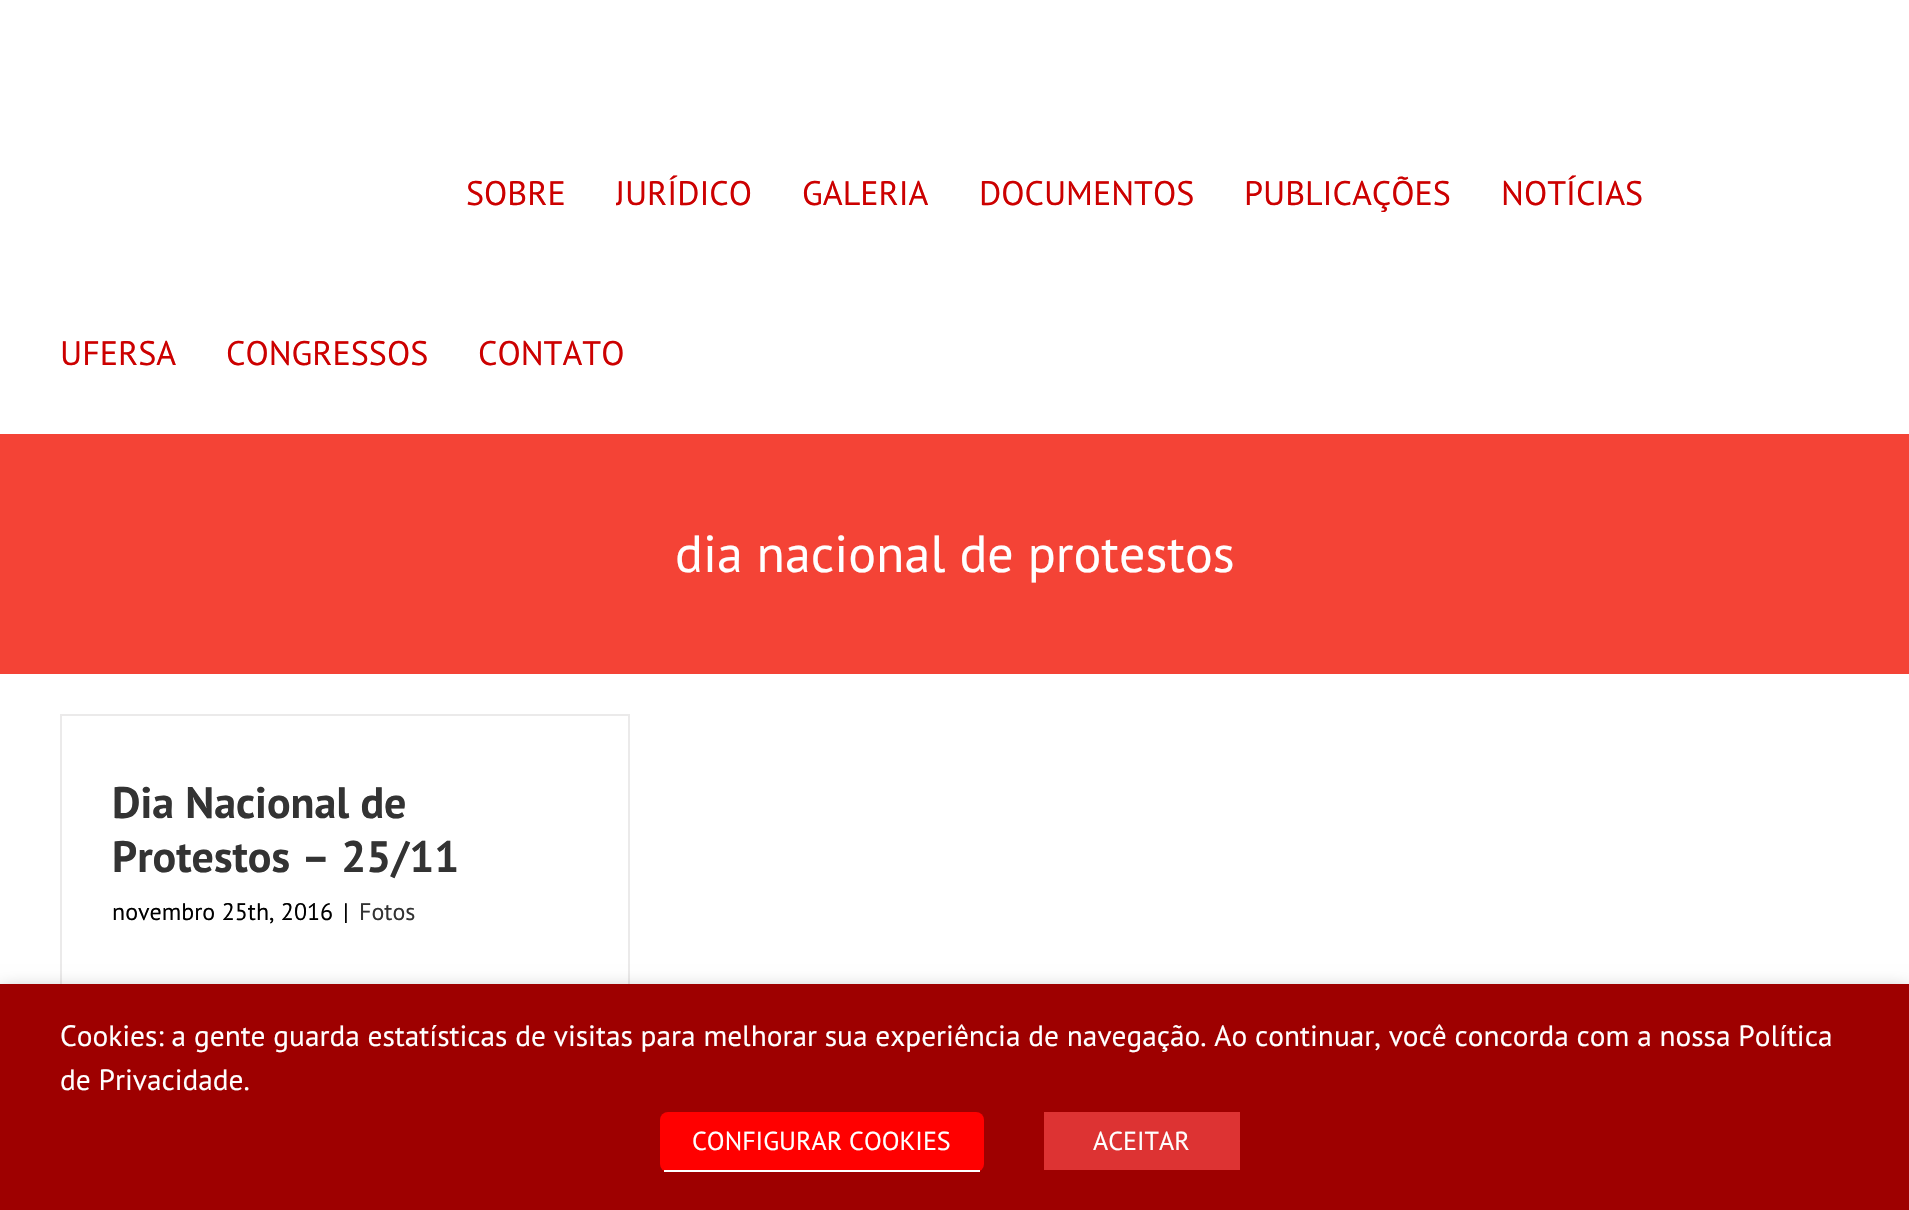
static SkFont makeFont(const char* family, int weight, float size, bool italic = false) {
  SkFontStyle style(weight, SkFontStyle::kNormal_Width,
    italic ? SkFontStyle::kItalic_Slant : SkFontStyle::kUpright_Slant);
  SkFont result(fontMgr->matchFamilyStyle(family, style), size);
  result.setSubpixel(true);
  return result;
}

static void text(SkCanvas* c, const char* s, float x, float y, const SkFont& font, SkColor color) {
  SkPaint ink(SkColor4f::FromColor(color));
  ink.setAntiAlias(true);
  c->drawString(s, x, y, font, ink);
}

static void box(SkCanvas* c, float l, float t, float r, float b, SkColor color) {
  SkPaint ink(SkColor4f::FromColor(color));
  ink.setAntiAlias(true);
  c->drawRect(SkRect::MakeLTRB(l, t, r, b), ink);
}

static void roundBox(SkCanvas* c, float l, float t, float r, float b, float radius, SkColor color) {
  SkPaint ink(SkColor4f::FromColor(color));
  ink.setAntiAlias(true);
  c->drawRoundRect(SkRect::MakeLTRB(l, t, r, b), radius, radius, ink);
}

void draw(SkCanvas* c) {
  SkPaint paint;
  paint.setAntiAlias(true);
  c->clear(0xffffffff);
  SkFont face1 = makeFont("PT Sans", 400, 34);
  text(c, "SOBRE", 466, 205, face1, 0xffcc0000);
  c->save();
  c->clipRect(SkRect::MakeLTRB(616, 114, 802, 274));
  text(c, "JURÍDICO", 615, 205, face1, 0xffcc0000);
  c->restore();
  text(c, "GALERIA", 802, 205, face1, 0xffcc0000);
  text(c, "DOCUMENTOS", 979, 205, face1, 0xffcc0000);
  text(c, "PUBLICAÇÕES", 1244, 205, face1, 0xffcc0000);
  text(c, "NOTÍCIAS", 1501, 205, face1, 0xffcc0000);
  text(c, "UFERSA", 60, 365, face1, 0xffcc0000);
  text(c, "CONGRESSOS", 226, 365, face1, 0xffcc0000);
  text(c, "CONTATO", 478, 365, face1, 0xffcc0000);
  box(c, 0, 434, 1909, 674, 0xfff44336);
  SkFont face2 = makeFont("PT Sans", 400, 52);
  text(c, "dia nacional de protestos", 675, 572, face2, 0xffffffff);
  box(c, 60, 714, 630, 716, 0xffebeaea);
  box(c, 628, 714, 630, 984, 0xffebeaea);
  box(c, 60, 714, 62, 984, 0xffebeaea);
  SkFont face3 = makeFont("PT Sans", 700, 44);
  text(c, "Dia Nacional de", 112, 818, face3, 0xff333333);
  text(c, "Protestos – 25/11", 112, 872, face3, 0xff333333);
  SkFont face4 = makeFont("PT Sans", 400, 24);
  text(c, "novembro 25th, 2016", 112, 920, face4, 0xff000000);
  text(c, "|", 343, 920, face4, 0xff000000);
  text(c, "Fotos", 359, 920, face4, 0xff333333);
  paint.setColor(0x80000000);
  paint.setMaskFilter(SkMaskFilter::MakeBlur(kNormal_SkBlurStyle, 10));
  c->drawRect(SkRect::MakeLTRB(0, 994, 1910, 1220), paint);
  paint.setMaskFilter(nullptr);
  box(c, 0, 984, 1909, 1210, 0xff9e0000);
  SkFont face5 = makeFont("PT Sans", 400, 29.33f);
  text(c, "Cookies: a gente guarda estatísticas de visitas para melhorar sua experiência de navegação. Ao continuar, você concorda com a nossa Política", 60, 1046, face5, 0xffffffff);
  text(c, "de Privacidade.", 60, 1090, face5, 0xffffffff);
  roundBox(c, 660, 1112, 984, 1172, 8, 0xffff0000);
  box(c, 664, 1170, 980, 1172, 0xffffffff);
  SkFont face6 = makeFont("PT Sans", 400, 26);
  text(c, "CONFIGURAR COOKIES", 692, 1150, face6, 0xffffffff);
  box(c, 1044, 1112, 1240, 1170, 0xffdd3333);
  text(c, "ACEITAR", 1093, 1150, face6, 0xffffffff);
}
